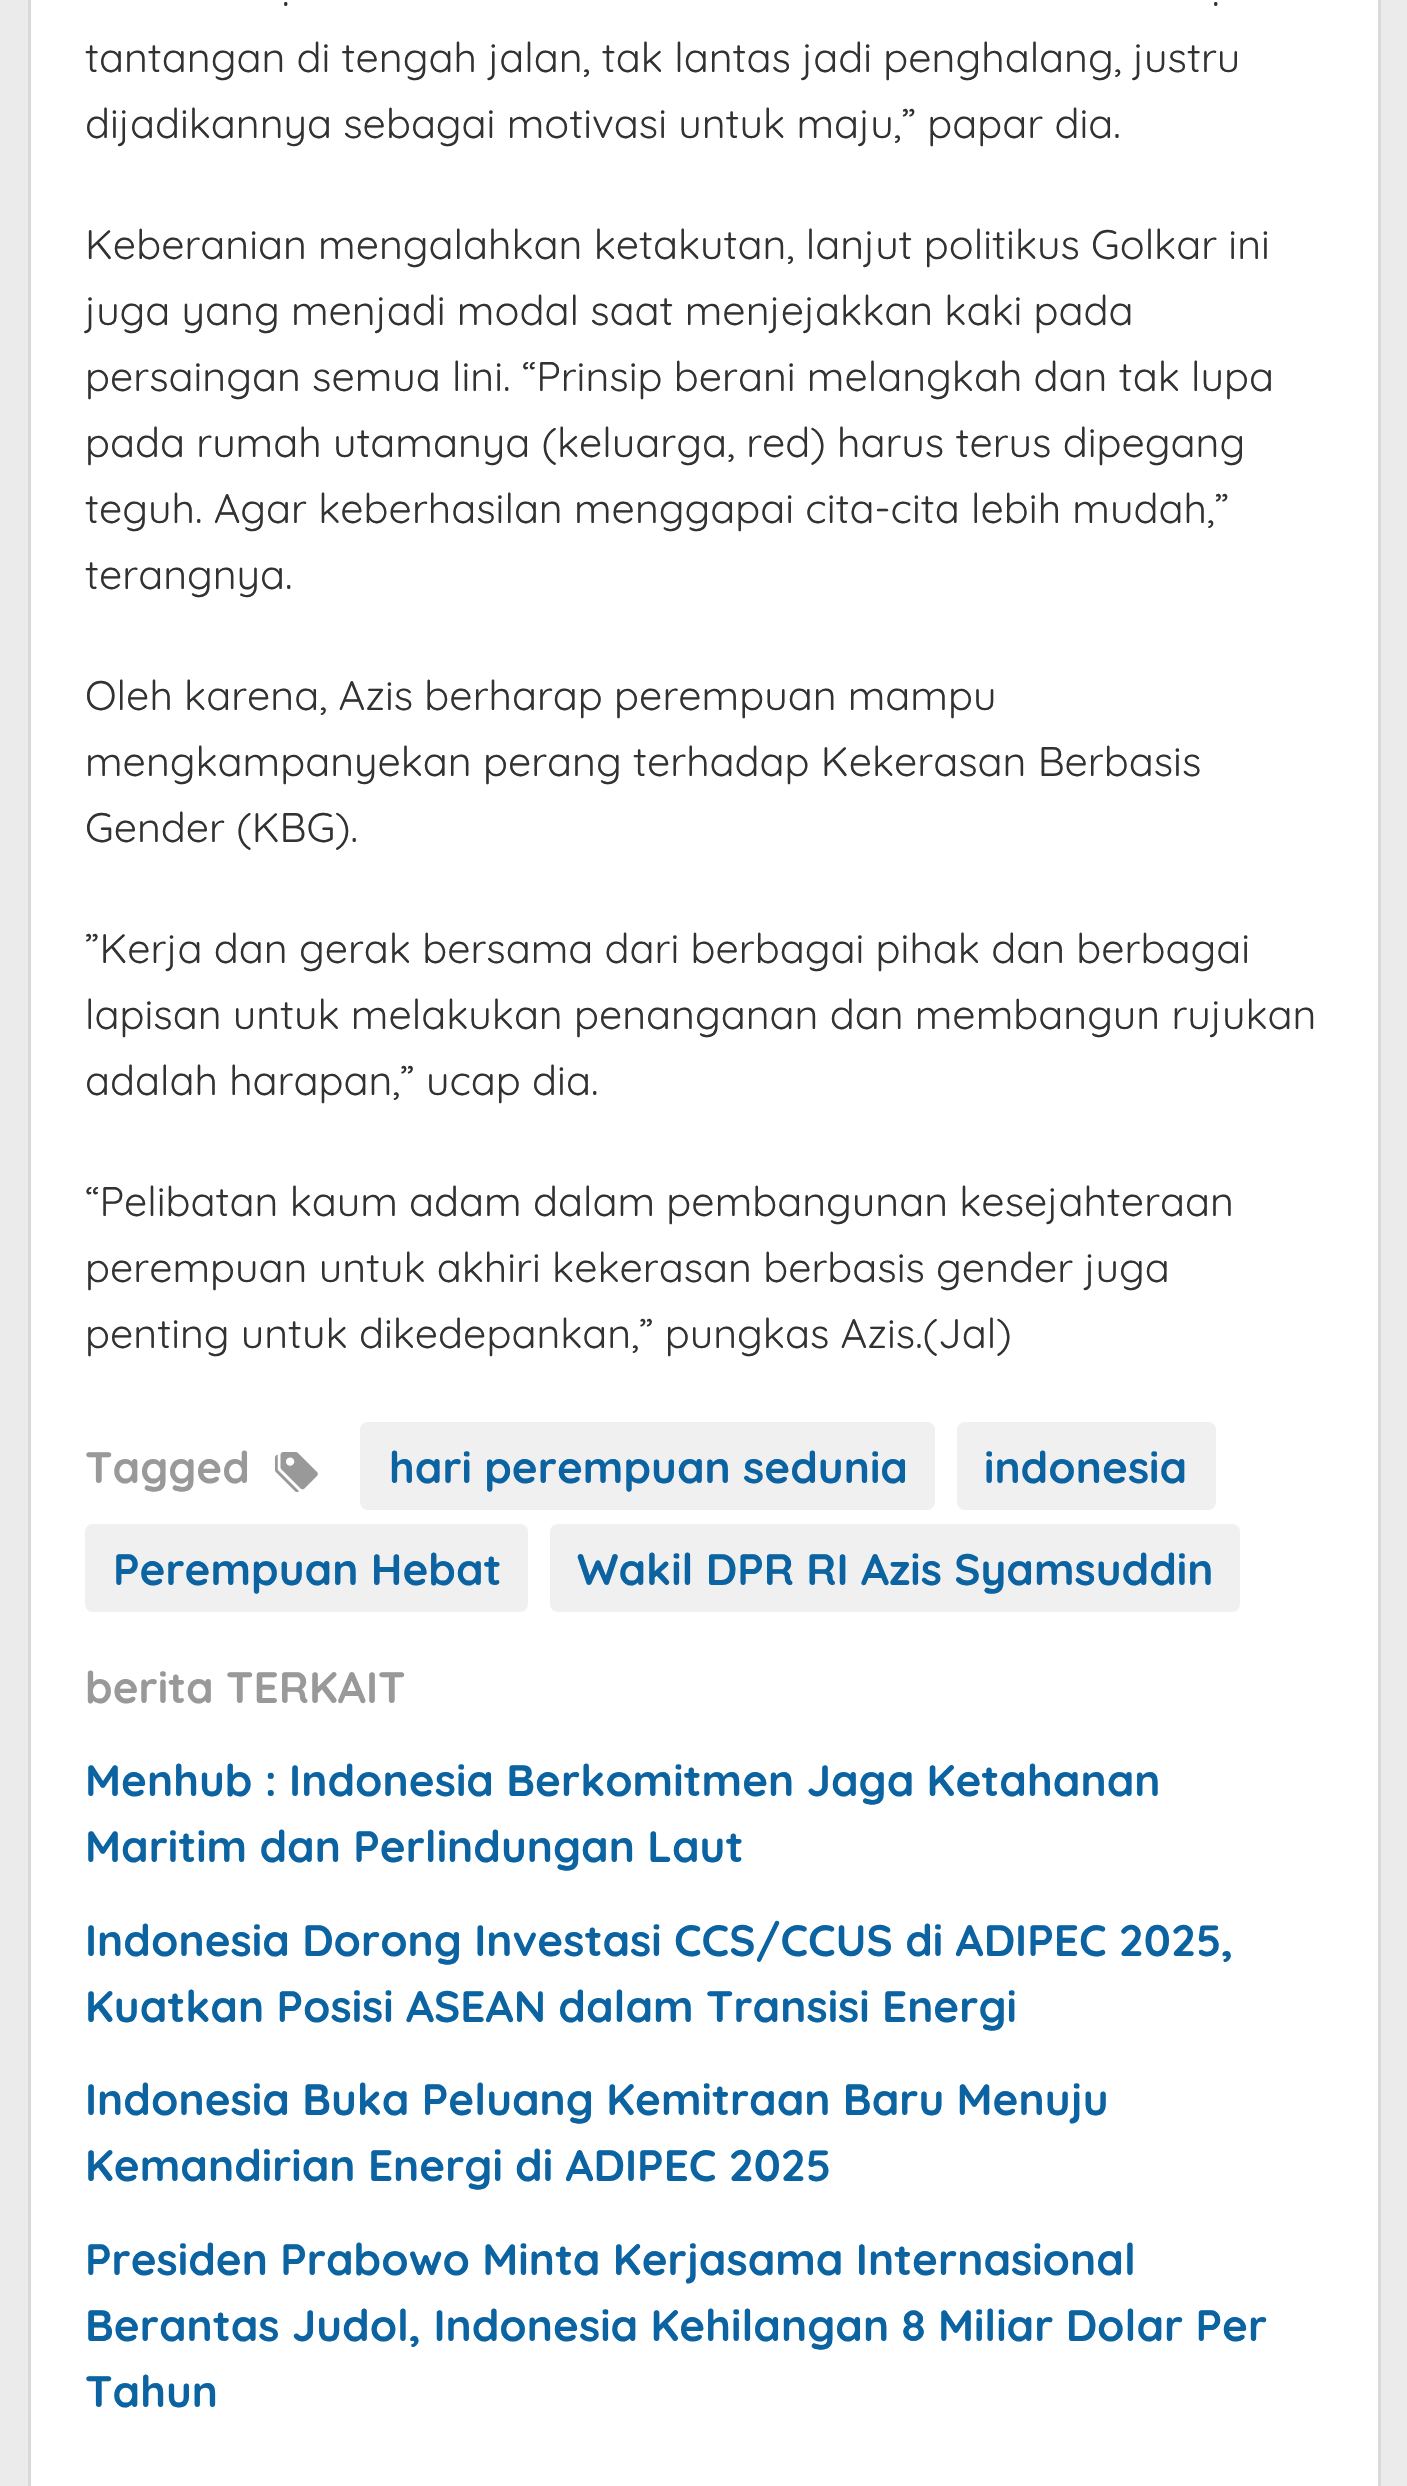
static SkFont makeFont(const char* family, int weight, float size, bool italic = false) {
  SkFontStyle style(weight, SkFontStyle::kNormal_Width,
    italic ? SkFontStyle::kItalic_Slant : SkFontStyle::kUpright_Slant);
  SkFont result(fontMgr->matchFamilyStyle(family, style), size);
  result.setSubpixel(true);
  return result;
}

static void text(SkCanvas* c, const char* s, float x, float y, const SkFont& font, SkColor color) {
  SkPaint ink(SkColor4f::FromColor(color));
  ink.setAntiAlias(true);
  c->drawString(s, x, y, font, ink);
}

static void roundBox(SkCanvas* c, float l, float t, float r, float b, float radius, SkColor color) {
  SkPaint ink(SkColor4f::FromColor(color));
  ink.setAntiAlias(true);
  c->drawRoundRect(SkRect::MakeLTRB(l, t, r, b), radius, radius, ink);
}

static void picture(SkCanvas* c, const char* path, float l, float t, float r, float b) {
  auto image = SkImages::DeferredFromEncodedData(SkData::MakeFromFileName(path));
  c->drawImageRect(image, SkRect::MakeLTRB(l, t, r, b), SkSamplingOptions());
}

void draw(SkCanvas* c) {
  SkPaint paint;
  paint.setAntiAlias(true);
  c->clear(0xffebebeb);
  paint.setColor(0xffffffff);
  c->drawRect(SkRect::MakeLTRB(29.5f, -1.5f, 1379.5f, 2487.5f), paint);
  paint.setStyle(SkPaint::kStroke_Style);
  paint.setStrokeWidth(3);
  paint.setColor(0xffd9d9d9);
  c->drawRect(SkRect::MakeLTRB(29.5f, -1.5f, 1379.5f, 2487.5f), paint);
  SkFont face1 = makeFont("Quicksand", 400, 41.25f);
  text(c, ".", 282, 6, face1, 0xff323233);
  text(c, ".", 1212, 6, face1, 0xff323233);
  text(c, "tantangan di tengah jalan, tak lantas jadi penghalang, justru", 85, 72, face1, 0xff323233);
  text(c, "dijadikannya sebagai motivasi untuk maju,” papar dia.", 85, 138, face1, 0xff323233);
  text(c, "Keberanian mengalahkan ketakutan, lanjut politikus Golkar ini", 85, 259, face1, 0xff323233);
  text(c, "juga yang menjadi modal saat menjejakkan kaki pada", 85, 325, face1, 0xff323233);
  text(c, "persaingan semua lini. “Prinsip berani melangkah dan tak lupa", 85, 391, face1, 0xff323233);
  text(c, "pada rumah utamanya (keluarga, red) harus terus dipegang", 85, 457, face1, 0xff323233);
  text(c, "teguh. Agar keberhasilan menggapai cita-cita lebih mudah,”", 85, 523, face1, 0xff323233);
  text(c, "terangnya.", 85, 589, face1, 0xff323233);
  text(c, "Oleh karena, Azis berharap perempuan mampu", 85, 710, face1, 0xff323233);
  text(c, "mengkampanyekan perang terhadap Kekerasan Berbasis", 85, 776, face1, 0xff323233);
  text(c, "Gender (KBG).", 85, 842, face1, 0xff323233);
  text(c, "”Kerja dan gerak bersama dari berbagai pihak dan berbagai", 85, 963, face1, 0xff323233);
  text(c, "lapisan untuk melakukan penanganan dan membangun rujukan", 85, 1029, face1, 0xff323233);
  text(c, "adalah harapan,” ucap dia.", 85, 1095, face1, 0xff323233);
  text(c, "“Pelibatan kaum adam dalam pembangunan kesejahteraan", 85, 1216, face1, 0xff323233);
  text(c, "perempuan untuk akhiri kekerasan berbasis gender juga", 85, 1282, face1, 0xff323233);
  text(c, "penting untuk dikedepankan,” pungkas Azis.(Jal)", 85, 1348, face1, 0xff323233);
  SkFont face2 = makeFont("Quicksand", 700, 44);
  text(c, "Tagged", 85, 1483, face2, 0xff999999);
  picture(c, "img_01.png", 275, 1452, 318, 1492);
  roundBox(c, 360, 1422, 935, 1510, 8, 0xfff0f0f0);
  text(c, "hari perempuan sedunia", 389, 1483, face2, 0xff0b63a1);
  roundBox(c, 957, 1422, 1216, 1510, 8, 0xfff0f0f0);
  text(c, "indonesia", 984, 1483, face2, 0xff0b63a1);
  roundBox(c, 85, 1524, 528, 1612, 8, 0xfff0f0f0);
  text(c, "Perempuan Hebat", 113, 1585, face2, 0xff0b63a1);
  roundBox(c, 550, 1524, 1240, 1612, 8, 0xfff0f0f0);
  text(c, "Wakil DPR RI Azis Syamsuddin", 577, 1585, face2, 0xff0b63a1);
  text(c, "berita TERKAIT", 85, 1703, face2, 0xff999999);
  text(c, "Menhub : Indonesia Berkomitmen Jaga Ketahanan", 85, 1796, face2, 0xff0b63a1);
  text(c, "Maritim dan Perlindungan Laut", 85, 1862, face2, 0xff0b63a1);
  text(c, "Indonesia Dorong Investasi CCS/CCUS di ADIPEC 2025,", 85, 1956, face2, 0xff0b63a1);
  text(c, "Kuatkan Posisi ASEAN dalam Transisi Energi", 85, 2022, face2, 0xff0b63a1);
  text(c, "Indonesia Buka Peluang Kemitraan Baru Menuju", 85, 2115, face2, 0xff0b63a1);
  text(c, "Kemandirian Energi di ADIPEC 2025", 85, 2181, face2, 0xff0b63a1);
  text(c, "Presiden Prabowo Minta Kerjasama Internasional", 85, 2275, face2, 0xff0b63a1);
  text(c, "Berantas Judol, Indonesia Kehilangan 8 Miliar Dolar Per", 85, 2341, face2, 0xff0b63a1);
  text(c, "Tahun", 85, 2407, face2, 0xff0b63a1);
}
